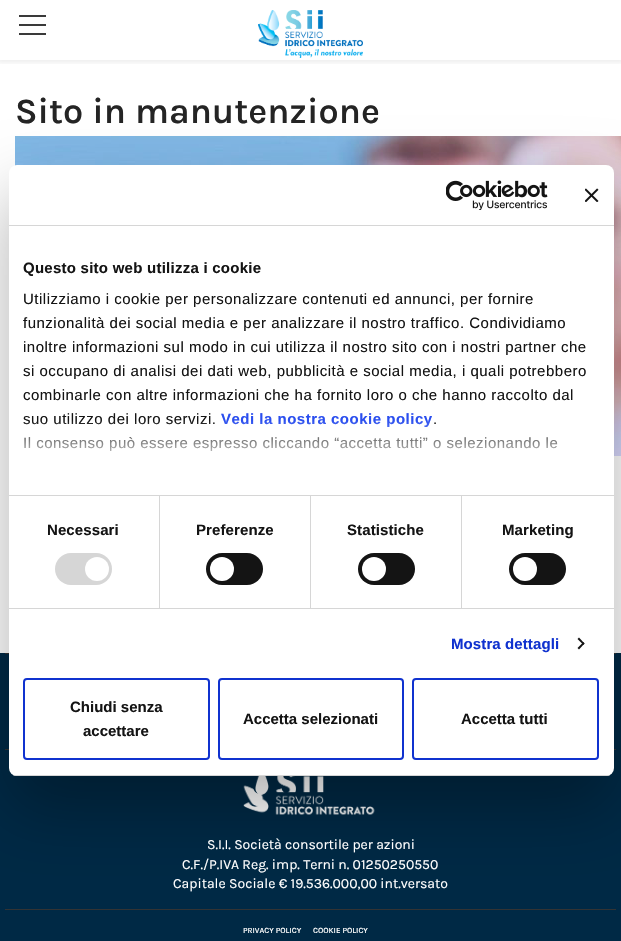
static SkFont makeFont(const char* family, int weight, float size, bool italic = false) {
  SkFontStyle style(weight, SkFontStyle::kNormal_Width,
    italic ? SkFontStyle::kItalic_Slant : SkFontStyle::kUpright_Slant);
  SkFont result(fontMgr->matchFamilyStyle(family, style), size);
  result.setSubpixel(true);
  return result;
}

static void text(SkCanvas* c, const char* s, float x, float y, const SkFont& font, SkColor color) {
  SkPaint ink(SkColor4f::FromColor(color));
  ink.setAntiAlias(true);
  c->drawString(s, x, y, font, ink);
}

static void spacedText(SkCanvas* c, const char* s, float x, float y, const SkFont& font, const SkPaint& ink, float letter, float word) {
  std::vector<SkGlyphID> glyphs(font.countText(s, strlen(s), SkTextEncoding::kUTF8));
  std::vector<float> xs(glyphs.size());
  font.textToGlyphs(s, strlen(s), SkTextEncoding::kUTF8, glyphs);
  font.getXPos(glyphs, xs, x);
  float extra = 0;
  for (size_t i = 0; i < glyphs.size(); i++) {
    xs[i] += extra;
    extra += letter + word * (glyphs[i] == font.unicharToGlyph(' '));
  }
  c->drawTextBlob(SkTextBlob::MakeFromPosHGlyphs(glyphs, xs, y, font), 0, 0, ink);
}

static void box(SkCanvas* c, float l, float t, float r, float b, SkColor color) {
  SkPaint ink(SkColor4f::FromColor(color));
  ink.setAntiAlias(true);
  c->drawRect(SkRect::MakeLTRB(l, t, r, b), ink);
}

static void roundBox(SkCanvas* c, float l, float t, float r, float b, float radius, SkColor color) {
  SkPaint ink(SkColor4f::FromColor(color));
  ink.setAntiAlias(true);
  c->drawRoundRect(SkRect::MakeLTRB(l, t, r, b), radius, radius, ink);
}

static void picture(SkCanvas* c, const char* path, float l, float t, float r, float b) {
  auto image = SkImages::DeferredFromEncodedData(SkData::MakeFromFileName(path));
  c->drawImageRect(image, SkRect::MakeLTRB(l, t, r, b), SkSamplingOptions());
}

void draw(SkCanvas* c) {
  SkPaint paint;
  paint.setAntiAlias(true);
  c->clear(0xffffffff);
  c->save();
  c->clipRect(SkRect::MakeLTRB(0, 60, 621, 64));
  paint.setColor(0x0f000000);
  paint.setMaskFilter(SkMaskFilter::MakeBlur(kNormal_SkBlurStyle, 2));
  c->drawRect(SkRect::MakeLTRB(-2, -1, 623, 63), paint);
  paint.setMaskFilter(nullptr);
  c->restore();
  box(c, 19, 15, 46, 17, 0xff3a3a3a);
  box(c, 19, 24, 46, 26, 0xff3a3a3a);
  box(c, 19, 33, 46, 35, 0xff3a3a3a);
  picture(c, "img_01.png", 258, 10, 363, 58);
  SkFont face1 = makeFont("Karla", 600, 36);
  text(c, "Sito in manutenzione", 15, 123, face1, 0xff242424);
  picture(c, "img_02.png", 15, 136, 621, 456);
  box(c, 0, 653, 621, 941, 0xff002945);
  box(c, 5, 653, 616, 654, 0xff333333);
  box(c, 5, 749, 616, 750, 0xff333333);
  picture(c, "img_05.png", 243, 776, 375, 815);
  box(c, 5, 909, 616, 910, 0xff333333);
  paint.setColor(0x4d000000);
  paint.setMaskFilter(SkMaskFilter::MakeBlur(kNormal_SkBlurStyle, 34));
  c->drawRoundRect(SkRect::MakeLTRB(9, 197, 614, 808), 8, 8, paint);
  paint.setMaskFilter(nullptr);
  roundBox(c, 9, 165, 614, 776, 8, 0xffffffff);
  box(c, 9, 225, 614, 226, 0xffd6d6d6);
  picture(c, "img_03.png", 446, 180, 548, 210);
  picture(c, "img_04.png", 585, 188, 599, 202);
  box(c, 9, 495, 614, 496, 0xffd6d6d6);
  SkFont face2 = makeFont("Liberation Sans", 700, 15);
  paint.setColor(0xff141414);
  spacedText(c, "Questo sito web utilizza i cookie", 23, 273, face2, paint, 0.25f, 0);
  SkFont face3 = makeFont("Liberation Sans", 400, 15);
  spacedText(c, "Utilizziamo i cookie per personalizzare contenuti ed annunci, per fornire", 23, 304, face3, paint, 0.5f, 0);
  spacedText(c, "funzionalità dei social media e per analizzare il nostro traffico. Condividiamo", 23, 328, face3, paint, 0.5f, 0);
  spacedText(c, "inoltre informazioni sul modo in cui utilizza il nostro sito con i nostri partner che", 23, 352, face3, paint, 0.5f, 0);
  spacedText(c, "si occupano di analisi dei dati web, pubblicità e social media, i quali potrebbero", 23, 376, face3, paint, 0.5f, 0);
  spacedText(c, "combinarle con altre informazioni che ha fornito loro o che hanno raccolto dal", 23, 400, face3, paint, 0.5f, 0);
  spacedText(c, "suo utilizzo dei loro servizi.", 23, 424, face3, paint, 0.5f, 0);
  paint.setColor(0xff2a4eef);
  spacedText(c, "Vedi la nostra cookie policy", 221, 424, face2, paint, 0.5f, 0);
  paint.setColor(0xff141414);
  spacedText(c, ".", 433, 424, face3, paint, 0.5f, 0);
  spacedText(c, "Il consenso può essere espresso cliccando “accetta tutti” o selezionando le", 23, 448, face3, paint, 0.5f, 0);
  {
    const SkColor colors[] = {0xffffffff, 0xccffffff, 0x00ffffff};
    const float stops[] = {0, 0.5f, 1};
    const SkPoint ends[] = {{305, 495}, {305, 420}};
    paint.setShader(SkGradientShader::MakeLinear(ends, colors, stops, 3, SkTileMode::kClamp));
    paint.setAlpha(255);
  }
  c->drawRect(SkRect::MakeLTRB(23, 421, 558, 452), paint);
  box(c, 9, 608, 614, 609, 0xffd6d6d6);
  box(c, 159, 496, 160, 608, 0xffd6d6d6);
  paint.setShader(nullptr);
  paint.setColor(0xff141414);
  spacedText(c, "Necessari", 47, 535, face2, paint, 0.1f, 0);
  roundBox(c, 55, 553, 112, 585, 16, 0xffd6d6d6);
  paint.setColor(0xffffffff);
  c->drawCircle(97, 569, 12, paint);
  box(c, 310, 496, 311, 608, 0xffd6d6d6);
  paint.setColor(0xff141414);
  spacedText(c, "Preferenze", 196, 535, face2, paint, 0.1f, 0);
  roundBox(c, 206, 553, 263, 585, 16, 0xff141414);
  paint.setColor(0xffffffff);
  c->drawCircle(222, 569, 12, paint);
  box(c, 461, 496, 462, 608, 0xffd6d6d6);
  paint.setColor(0xff141414);
  spacedText(c, "Statistiche", 347, 535, face2, paint, 0.1f, 0);
  roundBox(c, 358, 553, 415, 585, 16, 0xff141414);
  paint.setColor(0xffffffff);
  c->drawCircle(374, 569, 12, paint);
  paint.setColor(0xff141414);
  spacedText(c, "Marketing", 502, 535, face2, paint, 0.1f, 0);
  roundBox(c, 509, 553, 566, 585, 16, 0xff141414);
  paint.setColor(0xffffffff);
  c->drawCircle(525, 569, 12, paint);
  paint.setColor(0xff1032cf);
  spacedText(c, "Mostra dettagli", 451, 649, face2, paint, 0.1f, 0);
  paint.setColor(0xff141414);
  c->drawPath(SkPathBuilder().moveTo(579, 637.5f).lineTo(584.5f, 643.5f).lineTo(583.5f, 645).lineTo(577.5f, 639).close().detach(), paint);
  c->drawPath(SkPathBuilder().moveTo(583.5f, 642).lineTo(584.5f, 643.5f).lineTo(579, 649.5f).lineTo(577.5f, 648).close().detach(), paint);
  c->save();
  c->clipPath(SkPathBuilder().moveTo(17, 165).lineTo(606, 165).cubicTo(610.5f, 165, 614, 168.5f, 614, 173).lineTo(614, 768).cubicTo(614, 772.5f, 610.5f, 776, 606, 776).lineTo(17, 776).cubicTo(12.5f, 776, 9, 772.5f, 9, 768).lineTo(9, 173).cubicTo(9, 168.5f, 12.5f, 165, 17, 165).close().detach(), true);
  box(c, 9, 775, 614, 776, 0xffd6d6d6);
  c->restore();
  paint.setStyle(SkPaint::kStroke_Style);
  paint.setStrokeWidth(2);
  paint.setColor(0xff1032cf);
  c->drawRoundRect(SkRect::MakeLTRB(24, 679, 209, 759), 3, 3, paint);
  text(c, "Chiudi senza", 70, 712, face2, 0xff141414);
  text(c, "accettare", 83, 736, face2, 0xff141414);
  c->drawRoundRect(SkRect::MakeLTRB(219, 679, 403, 759), 3, 3, paint);
  text(c, "Accetta selezionati", 243, 724, face2, 0xff141414);
  c->drawRoundRect(SkRect::MakeLTRB(413, 679, 598, 759), 3, 3, paint);
  text(c, "Accetta tutti", 461, 724, face2, 0xff141414);
  SkFont face4 = makeFont("Karla", 400, 14);
  text(c, "S.I.I. Società consortile per azioni", 207, 849, face4, 0xffffffff);
  text(c, "C.F./P.IVA Reg. imp. Terni n. 01250250550", 182, 869, face4, 0xffffffff);
  text(c, "Capitale Sociale € 19.536.000,00 int.versato", 173, 888, face4, 0xffffffff);
  SkFont face5 = makeFont("Karla", 500, 8);
  text(c, "PRIVACY POLICY", 243, 933, face5, 0xffffffff);
  text(c, "COOKIE POLICY", 313, 933, face5, 0xffffffff);
}
